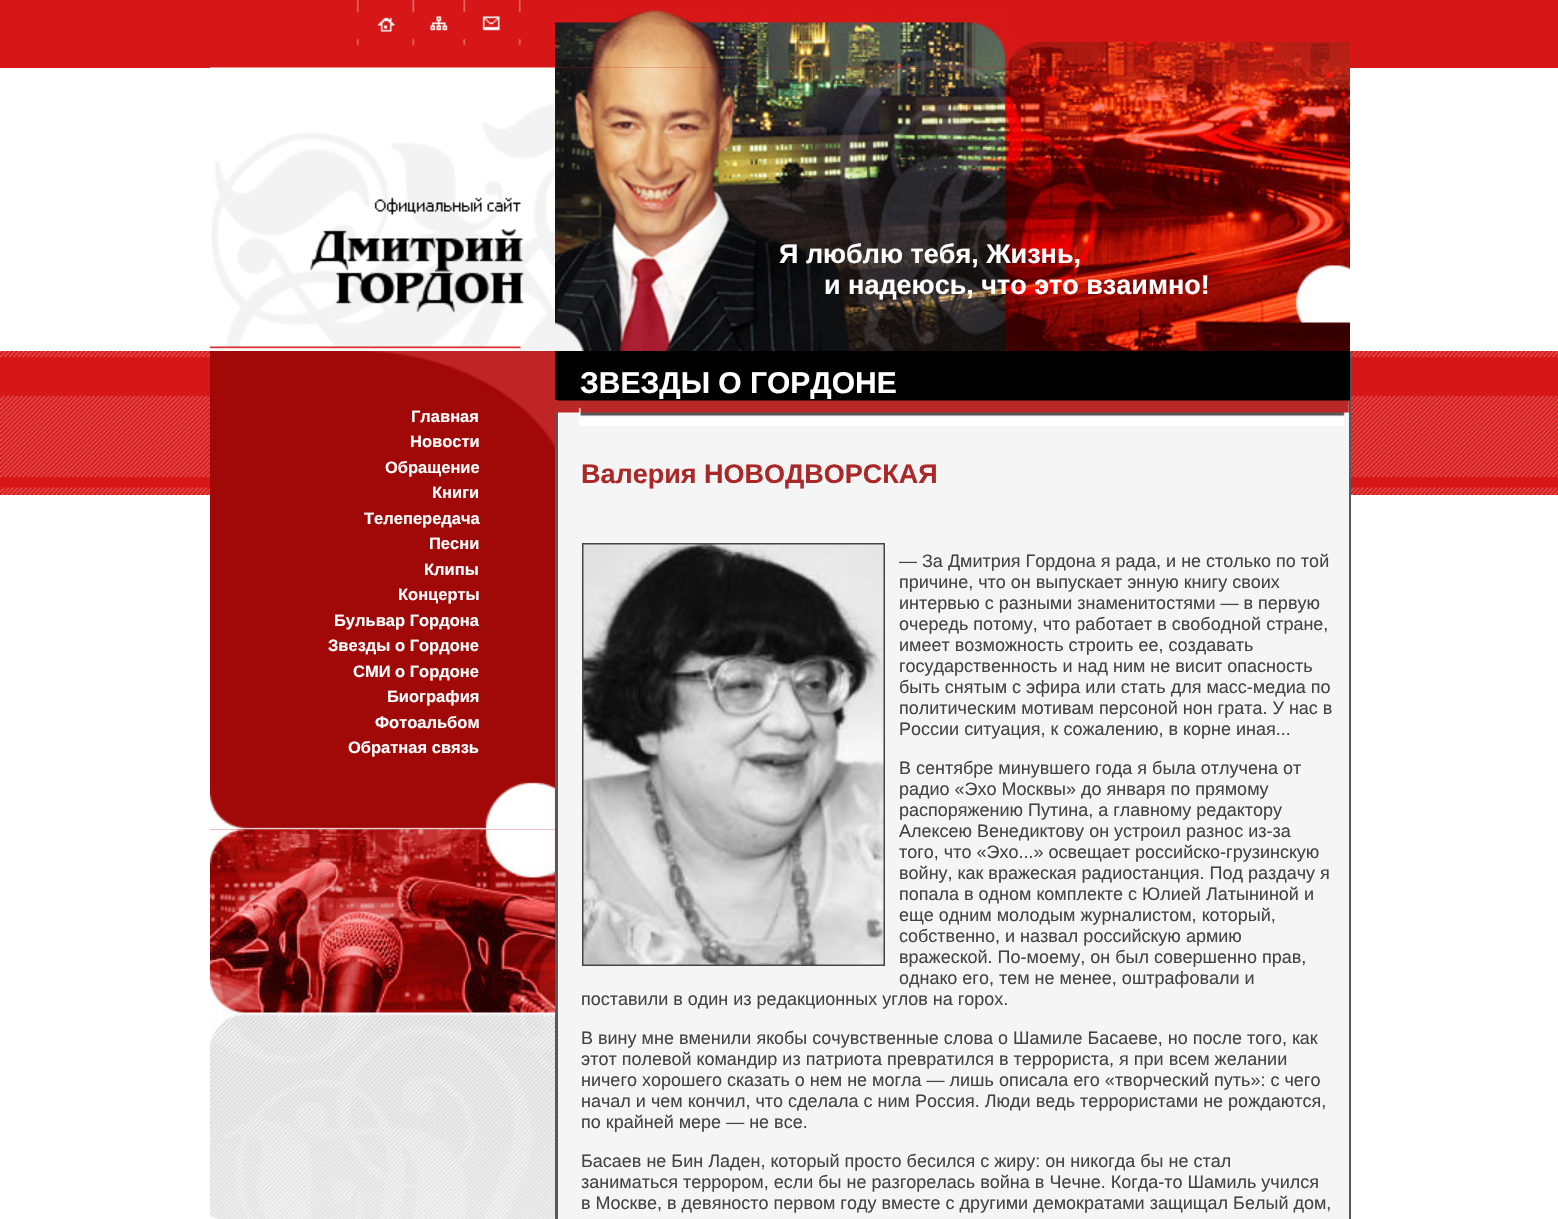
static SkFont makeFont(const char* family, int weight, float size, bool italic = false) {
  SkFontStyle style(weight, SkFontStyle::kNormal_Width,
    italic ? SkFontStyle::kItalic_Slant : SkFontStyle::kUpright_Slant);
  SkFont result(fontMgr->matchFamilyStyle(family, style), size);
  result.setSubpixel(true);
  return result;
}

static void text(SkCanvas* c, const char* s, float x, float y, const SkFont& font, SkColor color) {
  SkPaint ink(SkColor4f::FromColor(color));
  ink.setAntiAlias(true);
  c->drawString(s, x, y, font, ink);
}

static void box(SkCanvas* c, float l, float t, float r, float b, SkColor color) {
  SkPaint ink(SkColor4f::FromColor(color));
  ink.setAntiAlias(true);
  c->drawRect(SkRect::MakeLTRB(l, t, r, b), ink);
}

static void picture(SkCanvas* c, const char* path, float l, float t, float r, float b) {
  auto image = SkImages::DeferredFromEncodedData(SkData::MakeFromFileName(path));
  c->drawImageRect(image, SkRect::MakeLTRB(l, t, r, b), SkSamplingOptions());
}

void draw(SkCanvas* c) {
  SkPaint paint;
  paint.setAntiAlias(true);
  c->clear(0xffffffff);
  box(c, 0, 0, 1558, 68, 0xffd71717);
  picture(c, "img_01.png", 356, 0, 521, 46);
  picture(c, "img_05.png", 555, 67, 1350, 351);
  picture(c, "img_02.png", 555, 8, 1005, 68);
  picture(c, "img_03.png", 1005, 36, 1350, 68);
  picture(c, "img_04.png", 210, 67, 555, 351);
  SkFont face1 = makeFont("Liberation Sans", 700, 27);
  text(c, "Я люблю тебя, Жизнь,", 779, 263, face1, 0xffffffff);
  text(c, "и надеюсь, что это взаимно!", 824, 294, face1, 0xffffffff);
  picture(c, "img_06.png", 0, 351, 1558, 495);
  box(c, 210, 351, 555, 830, 0xffa00908);
  picture(c, "img_07.png", 346, 351, 555, 447);
  SkFont face2 = makeFont("Liberation Sans", 700, 16.5f);
  text(c, "Главная", 411, 422, face2, 0xffffffff);
  text(c, "Новости", 410, 447, face2, 0xffffffff);
  text(c, "Обращение", 385, 473, face2, 0xffffffff);
  text(c, "Книги", 432, 498, face2, 0xffffffff);
  text(c, "Телепередача", 364, 524, face2, 0xffffffff);
  text(c, "Песни", 429, 549, face2, 0xffffffff);
  text(c, "Клипы", 424, 575, face2, 0xffffffff);
  text(c, "Концерты", 398, 600, face2, 0xffffffff);
  text(c, "Бульвар Гордона", 334, 626, face2, 0xffffffff);
  text(c, "Звезды о Гордоне", 328, 651, face2, 0xffffffff);
  text(c, "СМИ о Гордоне", 353, 677, face2, 0xffffffff);
  text(c, "Биография", 387, 702, face2, 0xffffffff);
  text(c, "Фотоальбом", 375, 728, face2, 0xffffffff);
  text(c, "Обратная связь", 348, 753, face2, 0xffffffff);
  picture(c, "img_08.png", 210, 782, 555, 830);
  picture(c, "img_09.png", 210, 829, 555, 1219);
  box(c, 555, 413, 558, 1219, 0xff585858);
  box(c, 555, 351, 558, 401, 0xff000000);
  box(c, 555, 400, 558, 413, 0xffba2727);
  box(c, 558, 401, 1349, 1219, 0xfff5f5f5);
  box(c, 558, 351, 1349, 401, 0xff010101);
  SkFont face3 = makeFont("Liberation Sans", 700, 30);
  text(c, "ЗВЕЗДЫ О ГОРДОНЕ", 580, 393, face3, 0xffffffff);
  picture(c, "img_10.png", 558, 400, 1349, 426);
  text(c, "Валерия НОВОДВОРСКАЯ", 581, 483, face1, 0xffab2828);
  paint.setStyle(SkPaint::kStroke_Style);
  paint.setStrokeWidth(2);
  paint.setColor(0xff444444);
  c->drawRect(SkRect::MakeLTRB(583, 544, 884, 965), paint);
  picture(c, "img_11.png", 583, 544, 884, 965);
  SkFont face4 = makeFont("Liberation Sans", 400, 18);
  text(c, "— За Дмитрия Гордона я рада, и не столько по той", 899, 567, face4, 0xff444444);
  text(c, "причине, что он выпускает энную книгу своих", 899, 588, face4, 0xff444444);
  text(c, "интервью с разными знаменитостями — в первую", 899, 609, face4, 0xff444444);
  text(c, "очередь потому, что работает в свободной стране,", 899, 630, face4, 0xff444444);
  text(c, "имеет возможность строить ее, создавать", 899, 651, face4, 0xff444444);
  text(c, "государственность и над ним не висит опасность", 899, 672, face4, 0xff444444);
  text(c, "быть снятым с эфира или стать для масс-медиа по", 899, 693, face4, 0xff444444);
  text(c, "политическим мотивам персоной нон грата. У нас в", 899, 714, face4, 0xff444444);
  text(c, "России ситуация, к сожалению, в корне иная...", 899, 735, face4, 0xff444444);
  text(c, "В сентябре минувшего года я была отлучена от", 899, 774, face4, 0xff444444);
  text(c, "радио «Эхо Москвы» до января по прямому", 899, 795, face4, 0xff444444);
  text(c, "распоряжению Путина, а главному редактору", 899, 816, face4, 0xff444444);
  text(c, "Алексею Венедиктову он устроил разнос из-за", 899, 837, face4, 0xff444444);
  text(c, "того, что «Эхо...» освещает российско-грузинскую", 899, 858, face4, 0xff444444);
  text(c, "войну, как вражеская радиостанция. Под раздачу я", 899, 879, face4, 0xff444444);
  text(c, "попала в одном комплекте с Юлией Латыниной и", 899, 900, face4, 0xff444444);
  text(c, "еще одним молодым журналистом, который,", 899, 921, face4, 0xff444444);
  text(c, "собственно, и назвал российскую армию", 899, 942, face4, 0xff444444);
  text(c, "вражеской. По-моему, он был совершенно прав,", 899, 963, face4, 0xff444444);
  text(c, "однако его, тем не менее, оштрафовали и", 899, 984, face4, 0xff444444);
  text(c, "поставили в один из редакционных углов на горох.", 581, 1005, face4, 0xff444444);
  text(c, "В вину мне вменили якобы сочувственные слова о Шамиле Басаеве, но после того, как", 581, 1044, face4, 0xff444444);
  text(c, "этот полевой командир из патриота превратился в террориста, я при всем желании", 581, 1065, face4, 0xff444444);
  text(c, "ничего хорошего сказать о нем не могла — лишь описала его «творческий путь»: с чего", 581, 1086, face4, 0xff444444);
  text(c, "начал и чем кончил, что сделала с ним Россия. Люди ведь террористами не рождаются,", 581, 1107, face4, 0xff444444);
  text(c, "по крайней мере — не все.", 581, 1128, face4, 0xff444444);
  text(c, "Басаев не Бин Ладен, который просто бесился с жиру: он никогда бы не стал", 581, 1167, face4, 0xff444444);
  text(c, "заниматься террором, если бы не разгорелась война в Чечне. Когда-то Шамиль учился", 581, 1188, face4, 0xff444444);
  text(c, "в Москве, в девяносто первом году вместе с другими демократами защищал Белый дом,", 581, 1209, face4, 0xff444444);
  box(c, 1349, 351, 1351, 1219, 0xff585858);
  picture(c, "img_12.png", 1348, 351, 1350, 401);
  picture(c, "img_13.png", 1348, 400, 1350, 413);
}
